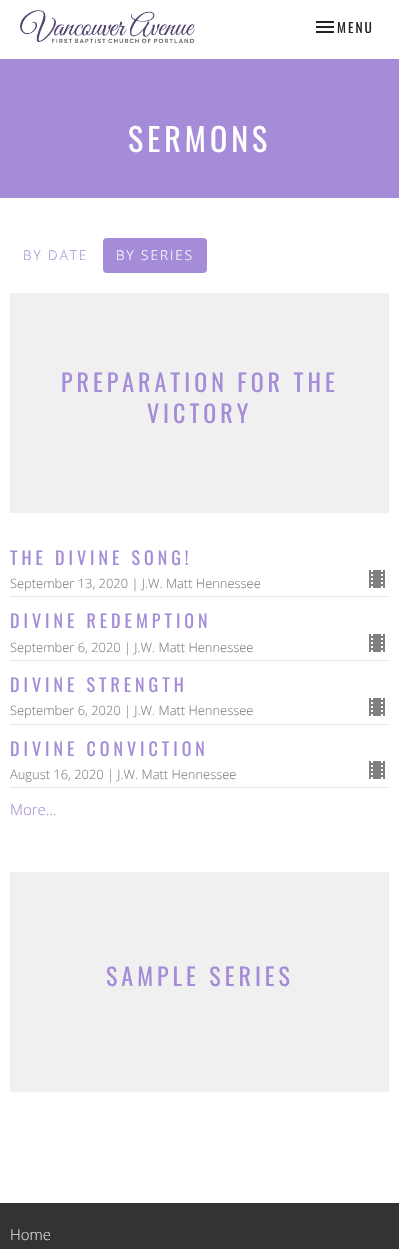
static SkFont makeFont(const char* family, int weight, float size, bool italic = false) {
  SkFontStyle style(weight, SkFontStyle::kNormal_Width,
    italic ? SkFontStyle::kItalic_Slant : SkFontStyle::kUpright_Slant);
  SkFont result(fontMgr->matchFamilyStyle(family, style), size);
  result.setSubpixel(true);
  return result;
}

static void text(SkCanvas* c, const char* s, float x, float y, const SkFont& font, SkColor color) {
  SkPaint ink(SkColor4f::FromColor(color));
  ink.setAntiAlias(true);
  c->drawString(s, x, y, font, ink);
}

static void spacedText(SkCanvas* c, const char* s, float x, float y, const SkFont& font, const SkPaint& ink, float letter, float word) {
  std::vector<SkGlyphID> glyphs(font.countText(s, strlen(s), SkTextEncoding::kUTF8));
  std::vector<float> xs(glyphs.size());
  font.textToGlyphs(s, strlen(s), SkTextEncoding::kUTF8, glyphs);
  font.getXPos(glyphs, xs, x);
  float extra = 0;
  for (size_t i = 0; i < glyphs.size(); i++) {
    xs[i] += extra;
    extra += letter + word * (glyphs[i] == font.unicharToGlyph(' '));
  }
  c->drawTextBlob(SkTextBlob::MakeFromPosHGlyphs(glyphs, xs, y, font), 0, 0, ink);
}

static void box(SkCanvas* c, float l, float t, float r, float b, SkColor color) {
  SkPaint ink(SkColor4f::FromColor(color));
  ink.setAntiAlias(true);
  c->drawRect(SkRect::MakeLTRB(l, t, r, b), ink);
}

static void roundBox(SkCanvas* c, float l, float t, float r, float b, float radius, SkColor color) {
  SkPaint ink(SkColor4f::FromColor(color));
  ink.setAntiAlias(true);
  c->drawRoundRect(SkRect::MakeLTRB(l, t, r, b), radius, radius, ink);
}

static void picture(SkCanvas* c, const char* path, float l, float t, float r, float b) {
  auto image = SkImages::DeferredFromEncodedData(SkData::MakeFromFileName(path));
  c->drawImageRect(image, SkRect::MakeLTRB(l, t, r, b), SkSamplingOptions());
}

void draw(SkCanvas* c) {
  SkPaint paint;
  paint.setAntiAlias(true);
  c->clear(0xffffffff);
  picture(c, "img_01.png", 20, 10, 195, 43);
  picture(c, "img_02.png", 316, 21, 334, 33);
  SkFont face1 = makeFont("Oswald", 400, 13.5f);
  paint.setColor(0xff222222);
  spacedText(c, "MENU", 337, 33, face1, paint, 2, 0);
  box(c, 0, 59, 399, 198, 0xffa58cd8);
  SkFont face2 = makeFont("Oswald", 400, 32);
  paint.setColor(0xffffffff);
  spacedText(c, "SERMONS", 128, 152, face2, paint, 4, 0);
  SkFont face3 = makeFont("Open Sans", 300, 13.5f);
  paint.setColor(0xffa58cd8);
  spacedText(c, "BY DATE", 23, 260, face3, paint, 2, 0);
  roundBox(c, 103, 238, 207, 273, 4, 0xffa58cd8);
  paint.setColor(0xffffffff);
  spacedText(c, "BY SERIES", 116, 260, face3, paint, 2, 0);
  box(c, 10, 293, 389, 513, 0xfff0f0f0);
  SkFont face4 = makeFont("Oswald", 400, 24);
  paint.setColor(0xffa58cd8);
  spacedText(c, "PREPARATION FOR THE", 61, 392, face4, paint, 4, 0);
  spacedText(c, "VICTORY", 147, 423, face4, paint, 4, 0);
  box(c, 10, 596, 389, 597, 0xffe6e6e6);
  SkFont face5 = makeFont("Oswald", 400, 18);
  spacedText(c, "THE DIVINE SONG!", 10, 565, face5, paint, 4, 0);
  SkFont face6 = makeFont("Open Sans", 300, 12.9f);
  text(c, "September 13, 2020 | J.W. Matt Hennessee", 10, 588, face6, 0xff808080);
  picture(c, "img_03.png", 369, 570, 385, 588);
  box(c, 10, 660, 389, 661, 0xffe6e6e6);
  spacedText(c, "DIVINE REDEMPTION", 10, 628, face5, paint, 4, 0);
  text(c, "September 6, 2020 | J.W. Matt Hennessee", 10, 652, face6, 0xff808080);
  picture(c, "img_03.png", 369, 634, 385, 652);
  box(c, 10, 724, 389, 725, 0xffe6e6e6);
  spacedText(c, "DIVINE STRENGTH", 10, 692, face5, paint, 4, 0);
  text(c, "September 6, 2020 | J.W. Matt Hennessee", 10, 715, face6, 0xff808080);
  picture(c, "img_03.png", 369, 698, 385, 716);
  box(c, 10, 787, 389, 788, 0xffe6e6e6);
  spacedText(c, "DIVINE CONVICTION", 10, 756, face5, paint, 4, 0);
  text(c, "August 16, 2020 | J.W. Matt Hennessee", 10, 779, face6, 0xff808080);
  picture(c, "img_03.png", 369, 761, 385, 779);
  SkFont face7 = makeFont("Open Sans", 300, 15);
  text(c, "More...", 10, 815, face7, 0xffa58cd8);
  box(c, 10, 872, 389, 1092, 0xfff0f0f0);
  spacedText(c, "SAMPLE SERIES", 106, 986, face4, paint, 4, 0);
  box(c, 0, 1203, 399, 1249, 0xff333333);
  text(c, "Home", 10, 1240, face7, 0xffdedede);
}
